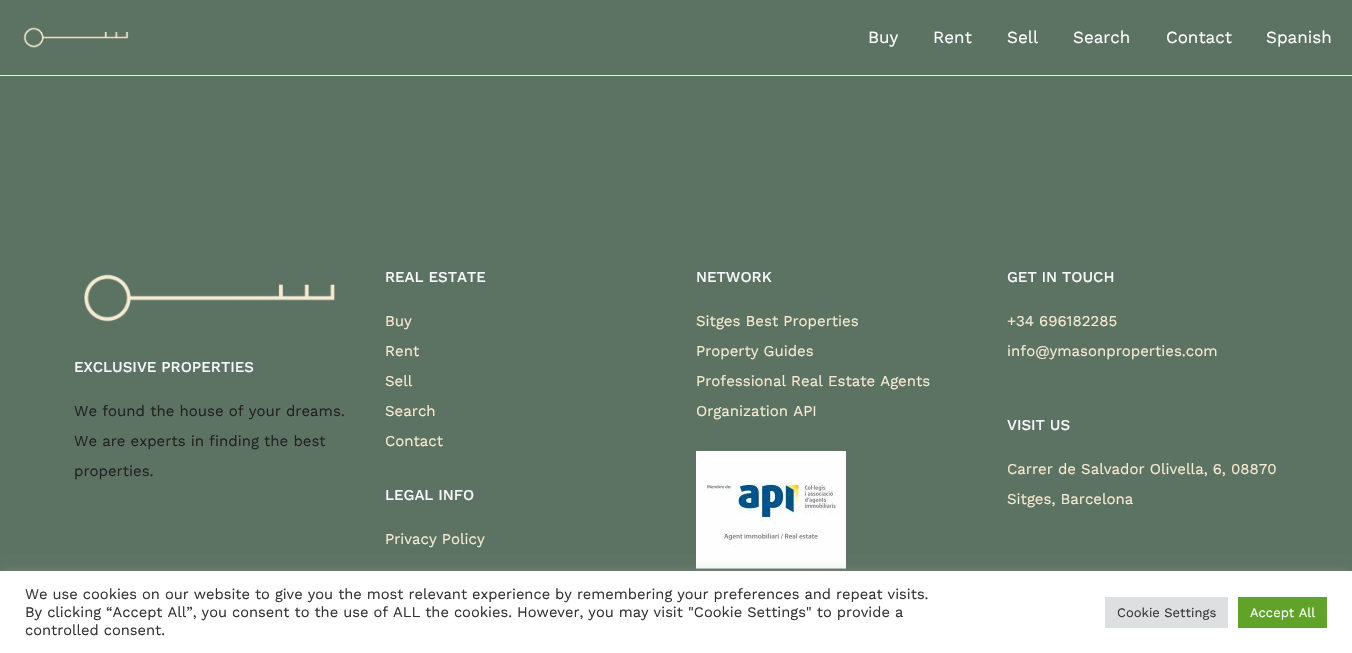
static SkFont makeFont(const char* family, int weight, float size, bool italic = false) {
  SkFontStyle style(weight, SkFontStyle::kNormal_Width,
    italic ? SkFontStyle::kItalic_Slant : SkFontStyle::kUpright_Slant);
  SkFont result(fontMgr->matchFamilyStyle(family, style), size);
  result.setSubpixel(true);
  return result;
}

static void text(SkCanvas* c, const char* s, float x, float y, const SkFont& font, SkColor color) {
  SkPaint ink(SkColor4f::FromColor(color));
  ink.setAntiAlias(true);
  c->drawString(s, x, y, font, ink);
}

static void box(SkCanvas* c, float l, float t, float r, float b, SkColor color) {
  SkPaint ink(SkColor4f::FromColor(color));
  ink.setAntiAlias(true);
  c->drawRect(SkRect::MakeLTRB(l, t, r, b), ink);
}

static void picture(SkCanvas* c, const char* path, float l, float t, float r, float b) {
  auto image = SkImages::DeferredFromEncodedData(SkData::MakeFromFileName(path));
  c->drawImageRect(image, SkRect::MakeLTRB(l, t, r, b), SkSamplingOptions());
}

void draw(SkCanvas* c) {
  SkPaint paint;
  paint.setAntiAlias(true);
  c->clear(0xff5c7262);
  box(c, 0, 75, 1352, 76, 0xfff6ebd3);
  picture(c, "img_01.png", 23, 27, 129, 48);
  SkFont face1 = makeFont("Work Sans", 400, 17);
  text(c, "Buy", 868, 43, face1, 0xffffffff);
  text(c, "Rent", 933, 43, face1, 0xffffffff);
  text(c, "Sell", 1007, 43, face1, 0xffffffff);
  text(c, "Search", 1073, 43, face1, 0xffffffff);
  text(c, "Contact", 1166, 43, face1, 0xffffffff);
  text(c, "Spanish", 1266, 43, face1, 0xffffffff);
  picture(c, "img_02.png", 84, 274, 335, 322);
  SkFont face2 = makeFont("Work Sans", 500, 15);
  text(c, "EXCLUSIVE PROPERTIES", 74, 372, face2, 0xfff7fafb);
  SkFont face3 = makeFont("Work Sans", 400, 15);
  text(c, "We found the house of your dreams.", 74, 416, face3, 0xff212121);
  text(c, "We are experts in finding the best", 74, 446, face3, 0xff212121);
  text(c, "properties.", 74, 476, face3, 0xff212121);
  text(c, "REAL ESTATE", 385, 282, face2, 0xfff7fafb);
  text(c, "Buy", 385, 326, face3, 0xfff6ebd3);
  text(c, "Rent", 385, 356, face3, 0xfff6ebd3);
  text(c, "Sell", 385, 386, face3, 0xfff6ebd3);
  text(c, "Search", 385, 416, face3, 0xfff6ebd3);
  text(c, "Contact", 385, 446, face3, 0xfff6ebd3);
  text(c, "LEGAL INFO", 385, 500, face2, 0xfff7fafb);
  text(c, "Privacy Policy", 385, 544, face3, 0xfff6ebd3);
  text(c, "NETWORK", 696, 282, face2, 0xfff7fafb);
  text(c, "Sitges Best Properties", 696, 326, face3, 0xfff6ebd3);
  text(c, "Property Guides", 696, 356, face3, 0xfff6ebd3);
  text(c, "Professional Real Estate Agents", 696, 386, face3, 0xfff6ebd3);
  text(c, "Organization API", 696, 416, face3, 0xfff6ebd3);
  picture(c, "img_03.png", 696, 451, 846, 571);
  text(c, "GET IN TOUCH", 1007, 282, face2, 0xfff7fafb);
  text(c, "+34 696182285", 1007, 326, face3, 0xfff6ebd3);
  text(c, "info@ymasonproperties.com", 1007, 356, face3, 0xfff6ebd3);
  text(c, "VISIT US", 1007, 430, face2, 0xfff7fafb);
  text(c, "Carrer de Salvador Olivella, 6, 08870", 1007, 474, face3, 0xfff6ebd3);
  text(c, "Sitges, Barcelona", 1007, 504, face3, 0xfff6ebd3);
  paint.setColor(0x4dacabab);
  paint.setMaskFilter(SkMaskFilter::MakeBlur(kNormal_SkBlurStyle, 5));
  c->drawRect(SkRect::MakeLTRB(0, 570, 1352, 652), paint);
  paint.setMaskFilter(nullptr);
  box(c, 0, 571, 1352, 653, 0xffffffff);
  SkFont face4 = makeFont("Work Sans", 400, 14.67f);
  text(c, "We use cookies on our website to give you the most relevant experience by remembering your preferences and repeat visits.", 25, 599, face4, 0xff333333);
  text(c, "By clicking “Accept All”, you consent to the use of ALL the cookies. However, you may visit \"Cookie Settings\" to provide a", 25, 617, face4, 0xff333333);
  text(c, "controlled consent.", 25, 635, face4, 0xff333333);
  box(c, 1105, 597, 1228, 628, 0xffdedfe0);
  SkFont face5 = makeFont("Work Sans", 400, 13);
  text(c, "Cookie Settings", 1117, 617, face5, 0xff333333);
  box(c, 1238, 597, 1327, 628, 0xff61a229);
  text(c, "Accept All", 1250, 617, face5, 0xffffffff);
}
